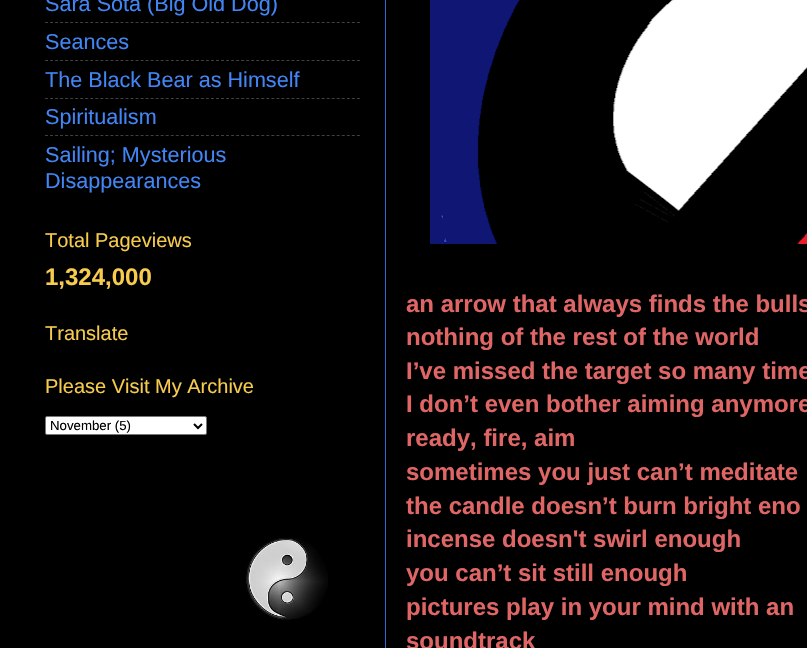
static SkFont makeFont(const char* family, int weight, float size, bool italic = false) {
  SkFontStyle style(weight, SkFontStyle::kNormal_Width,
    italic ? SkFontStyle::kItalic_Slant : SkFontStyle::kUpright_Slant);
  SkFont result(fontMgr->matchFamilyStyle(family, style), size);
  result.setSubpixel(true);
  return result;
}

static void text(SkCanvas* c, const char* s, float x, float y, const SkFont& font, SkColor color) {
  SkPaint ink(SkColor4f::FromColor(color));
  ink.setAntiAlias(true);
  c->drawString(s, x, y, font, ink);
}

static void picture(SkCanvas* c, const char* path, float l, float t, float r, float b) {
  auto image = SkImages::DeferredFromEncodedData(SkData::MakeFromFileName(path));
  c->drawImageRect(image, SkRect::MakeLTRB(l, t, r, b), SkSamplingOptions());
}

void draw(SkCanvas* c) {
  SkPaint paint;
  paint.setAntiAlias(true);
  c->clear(0xff000000);
  SkFont face1 = makeFont("Liberation Sans", 400, 21.6f);
  text(c, "Sara Sota (Big Old Dog)", 45, 11, face1, 0xff4285f4);
  paint.setStyle(SkPaint::kStroke_Style);
  paint.setStrokeWidth(1);
  paint.setColor(0xff404040);
  paint.setPathEffect(SkDashPathEffect::Make({{3, 2.03f}}, 0));
  c->drawPath(SkPathBuilder().moveTo(45, 22.5f).lineTo(360, 22.5f).detach(), paint);
  paint.setPathEffect(nullptr);
  text(c, "Seances", 45, 49, face1, 0xff4285f4);
  paint.setPathEffect(SkDashPathEffect::Make({{3, 2.03f}}, 0));
  c->drawPath(SkPathBuilder().moveTo(45, 60.5f).lineTo(360, 60.5f).detach(), paint);
  paint.setPathEffect(nullptr);
  text(c, "The Black Bear as Himself", 45, 87, face1, 0xff4285f4);
  paint.setPathEffect(SkDashPathEffect::Make({{3, 2.03f}}, 0));
  c->drawPath(SkPathBuilder().moveTo(45, 98.5f).lineTo(360, 98.5f).detach(), paint);
  paint.setPathEffect(nullptr);
  text(c, "Spiritualism", 45, 124, face1, 0xff4285f4);
  paint.setPathEffect(SkDashPathEffect::Make({{3, 2.03f}}, 0));
  c->drawPath(SkPathBuilder().moveTo(45, 135.5f).lineTo(360, 135.5f).detach(), paint);
  paint.setPathEffect(nullptr);
  text(c, "Sailing; Mysterious", 45, 162, face1, 0xff4285f4);
  text(c, "Disappearances", 45, 188, face1, 0xff4285f4);
  SkFont face2 = makeFont("Liberation Sans", 400, 20);
  text(c, "Total Pageviews", 45, 247, face2, 0xfff7cb4d);
  SkFont face3 = makeFont("Liberation Sans", 700, 24);
  text(c, "1,324,000", 45, 285, face3, 0xfff7cb4d);
  text(c, "Translate", 45, 340, face2, 0xfff7cb4d);
  text(c, "Please Visit My Archive", 45, 393, face2, 0xfff7cb4d);
  paint.setStyle(SkPaint::kFill_Style);
  paint.setColor(0xffffffff);
  c->drawRoundRect(SkRect::MakeLTRB(45.5f, 416.5f, 206.5f, 434.5f), 1.5f, 1.5f, paint);
  paint.setStyle(SkPaint::kStroke_Style);
  paint.setColor(0xff767676);
  c->drawRoundRect(SkRect::MakeLTRB(45.5f, 416.5f, 206.5f, 434.5f), 1.5f, 1.5f, paint);
  paint.setStrokeWidth(2);
  paint.setColor(0xff000000);
  c->drawPath(SkPathBuilder().moveTo(194, 424).lineTo(198, 428).lineTo(202, 424).detach(), paint);
  SkFont face4 = makeFont("Liberation Sans", 400, 13.25f);
  text(c, "November (5)", 50, 430, face4, 0xff000000);
  picture(c, "img_01.png", 245, 537, 328, 620);
  paint.setStrokeWidth(1);
  paint.setColor(0xff3367d6);
  c->drawRect(SkRect::MakeLTRB(385.5f, -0.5f, 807.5f, 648.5f), paint);
  picture(c, "img_02.png", 430, 0, 807, 244);
  text(c, "an arrow that always finds the bulls", 406, 312, face3, 0xffe06666);
  text(c, "nothing of the rest of the world", 406, 345, face3, 0xffe06666);
  text(c, "I’ve missed the target so many time", 406, 379, face3, 0xffe06666);
  text(c, "I don’t even bother aiming anymore", 406, 412, face3, 0xffe06666);
  text(c, "ready, fire, aim", 406, 446, face3, 0xffe06666);
  text(c, "sometimes you just can’t meditate", 406, 480, face3, 0xffe06666);
  text(c, "the candle doesn’t burn bright eno", 406, 514, face3, 0xffe06666);
  text(c, "incense doesn't swirl enough", 406, 547, face3, 0xffe06666);
  text(c, "you can’t sit still enough", 406, 581, face3, 0xffe06666);
  text(c, "pictures play in your mind with an", 406, 615, face3, 0xffe06666);
  text(c, "soundtrack", 406, 649, face3, 0xffe06666);
}
